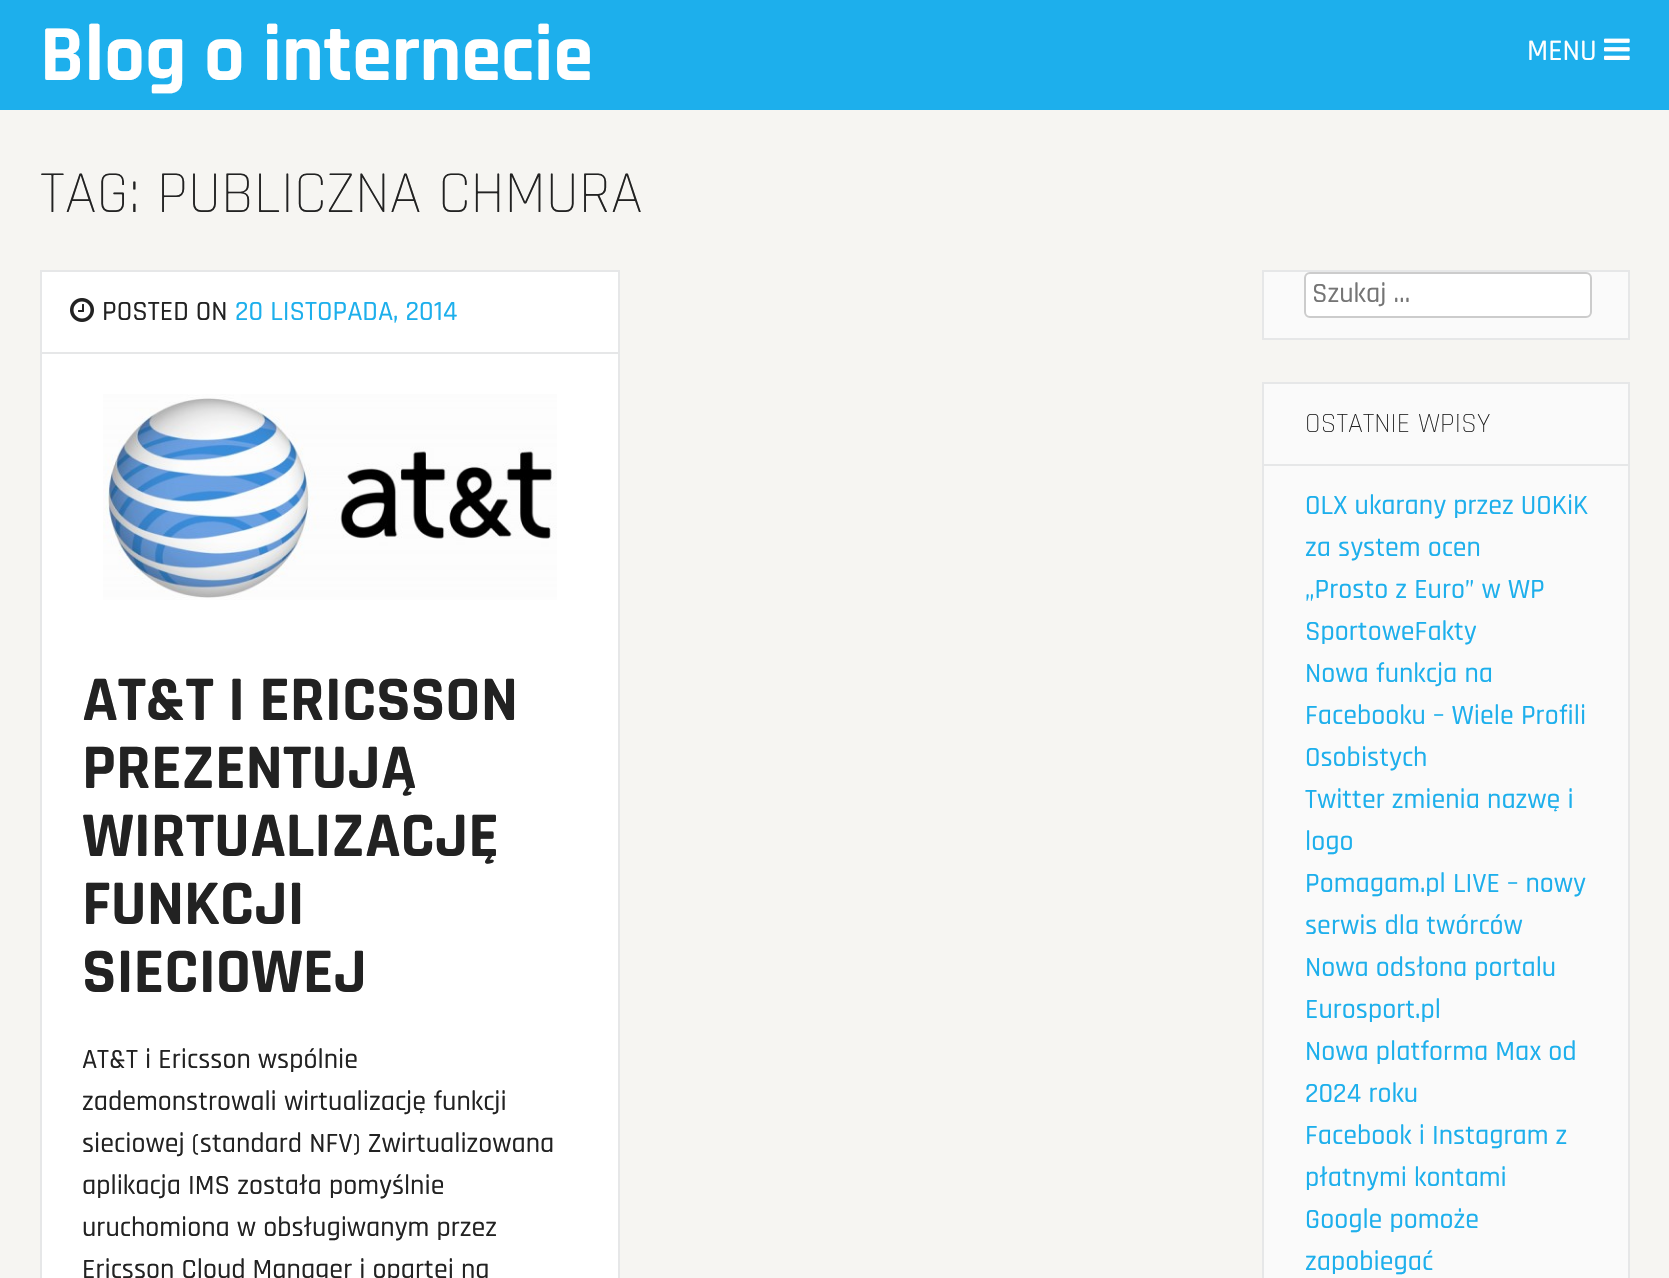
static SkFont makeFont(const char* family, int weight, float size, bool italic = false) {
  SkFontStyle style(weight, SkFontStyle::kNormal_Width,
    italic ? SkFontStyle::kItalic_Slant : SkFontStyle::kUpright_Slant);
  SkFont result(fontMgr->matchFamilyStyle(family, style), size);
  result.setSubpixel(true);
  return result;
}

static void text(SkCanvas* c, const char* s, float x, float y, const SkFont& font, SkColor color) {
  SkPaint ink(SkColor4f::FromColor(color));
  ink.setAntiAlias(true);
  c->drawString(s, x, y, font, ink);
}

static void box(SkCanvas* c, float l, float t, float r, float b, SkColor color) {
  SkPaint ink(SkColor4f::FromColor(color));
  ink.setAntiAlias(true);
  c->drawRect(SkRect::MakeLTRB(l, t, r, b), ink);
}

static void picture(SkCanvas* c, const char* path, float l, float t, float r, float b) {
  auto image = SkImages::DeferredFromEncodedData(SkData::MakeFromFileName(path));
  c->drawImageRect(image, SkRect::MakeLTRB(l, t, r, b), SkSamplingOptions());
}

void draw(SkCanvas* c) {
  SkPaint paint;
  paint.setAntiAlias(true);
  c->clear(0xfff6f5f2);
  box(c, 0, 0, 1669, 110, 0xff1dafec);
  SkFont face1 = makeFont("Rajdhani", 700, 80);
  text(c, "Blog o internecie", 40, 80, face1, 0xffffffff);
  SkFont face2 = makeFont("Rajdhani", 500, 30);
  text(c, "MENU", 1527, 60, face2, 0xffffffff);
  picture(c, "img_01.png", 1604, 38, 1630, 60);
  SkFont face3 = makeFont("Rajdhani", 300, 60);
  text(c, "TAG: PUBLICZNA CHMURA", 40, 212, face3, 0xff222222);
  paint.setColor(0xffffffff);
  c->drawRect(SkRect::MakeLTRB(41, 271, 619, 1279), paint);
  paint.setStyle(SkPaint::kStroke_Style);
  paint.setStrokeWidth(2);
  paint.setColor(0xffe6e7e8);
  c->drawRect(SkRect::MakeLTRB(41, 271, 619, 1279), paint);
  box(c, 42, 352, 618, 354, 0xffe6e7e8);
  picture(c, "img_02.png", 70, 298, 94, 322);
  SkFont face4 = makeFont("Rajdhani", 500, 28);
  text(c, "POSTED ON", 102, 320, face4, 0xff222222);
  text(c, "20 LISTOPADA, 2014", 235, 320, face4, 0xff1dafec);
  picture(c, "img_03.png", 103, 394, 557, 600);
  SkFont face5 = makeFont("Rajdhani", 700, 64);
  text(c, "AT&T I ERICSSON", 82, 720, face5, 0xff222222);
  text(c, "PREZENTUJĄ", 82, 788, face5, 0xff222222);
  text(c, "WIRTUALIZACJĘ", 82, 856, face5, 0xff222222);
  text(c, "FUNKCJI", 82, 924, face5, 0xff222222);
  text(c, "SIECIOWEJ", 82, 992, face5, 0xff222222);
  text(c, "AT&T i Ericsson wspólnie", 82, 1068, face4, 0xff222222);
  text(c, "zademonstrowali wirtualizację funkcji", 82, 1110, face4, 0xff222222);
  text(c, "sieciowej (standard NFV) Zwirtualizowana", 82, 1152, face4, 0xff222222);
  text(c, "aplikacja IMS została pomyślnie", 82, 1194, face4, 0xff222222);
  text(c, "uruchomiona w obsługiwanym przez", 82, 1236, face4, 0xff222222);
  text(c, "Ericsson Cloud Manager i opartej na", 82, 1278, face4, 0xff222222);
  paint.setStyle(SkPaint::kFill_Style);
  paint.setColor(0xfffafafa);
  c->drawRect(SkRect::MakeLTRB(1263, 271, 1629, 339), paint);
  paint.setStyle(SkPaint::kStroke_Style);
  paint.setColor(0xffe6e7e8);
  c->drawRect(SkRect::MakeLTRB(1263, 271, 1629, 339), paint);
  paint.setStyle(SkPaint::kFill_Style);
  paint.setColor(0xffffffff);
  c->drawRoundRect(SkRect::MakeLTRB(1305, 273, 1591, 317), 5, 5, paint);
  paint.setStyle(SkPaint::kStroke_Style);
  paint.setColor(0xffcccccc);
  c->drawRoundRect(SkRect::MakeLTRB(1305, 273, 1591, 317), 5, 5, paint);
  text(c, "Szukaj …", 1312, 302, face4, 0xff757575);
  paint.setStyle(SkPaint::kFill_Style);
  paint.setColor(0xfffafafa);
  c->drawRect(SkRect::MakeLTRB(1263, 383, 1629, 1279), paint);
  paint.setStyle(SkPaint::kStroke_Style);
  paint.setColor(0xffe6e7e8);
  c->drawRect(SkRect::MakeLTRB(1263, 383, 1629, 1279), paint);
  box(c, 1264, 464, 1628, 466, 0xffe6e7e8);
  SkFont face6 = makeFont("Rajdhani", 300, 28);
  text(c, "OSTATNIE WPISY", 1305, 432, face6, 0xff222222);
  text(c, "OLX ukarany przez UOKiK", 1305, 514, face4, 0xff1dafec);
  text(c, "za system ocen", 1305, 556, face4, 0xff1dafec);
  text(c, "„Prosto z Euro” w WP", 1305, 598, face4, 0xff1dafec);
  text(c, "SportoweFakty", 1305, 640, face4, 0xff1dafec);
  text(c, "Nowa funkcja na", 1305, 682, face4, 0xff1dafec);
  text(c, "Facebooku – Wiele Profili", 1305, 724, face4, 0xff1dafec);
  text(c, "Osobistych", 1305, 766, face4, 0xff1dafec);
  text(c, "Twitter zmienia nazwę i", 1305, 808, face4, 0xff1dafec);
  text(c, "logo", 1305, 850, face4, 0xff1dafec);
  text(c, "Pomagam.pl LIVE – nowy", 1305, 892, face4, 0xff1dafec);
  text(c, "serwis dla twórców", 1305, 934, face4, 0xff1dafec);
  text(c, "Nowa odsłona portalu", 1305, 976, face4, 0xff1dafec);
  text(c, "Eurosport.pl", 1305, 1018, face4, 0xff1dafec);
  text(c, "Nowa platforma Max od", 1305, 1060, face4, 0xff1dafec);
  text(c, "2024 roku", 1305, 1102, face4, 0xff1dafec);
  text(c, "Facebook i Instagram z", 1305, 1144, face4, 0xff1dafec);
  text(c, "płatnymi kontami", 1305, 1186, face4, 0xff1dafec);
  text(c, "Google pomoże", 1305, 1228, face4, 0xff1dafec);
  text(c, "zapobiegać", 1305, 1270, face4, 0xff1dafec);
}
